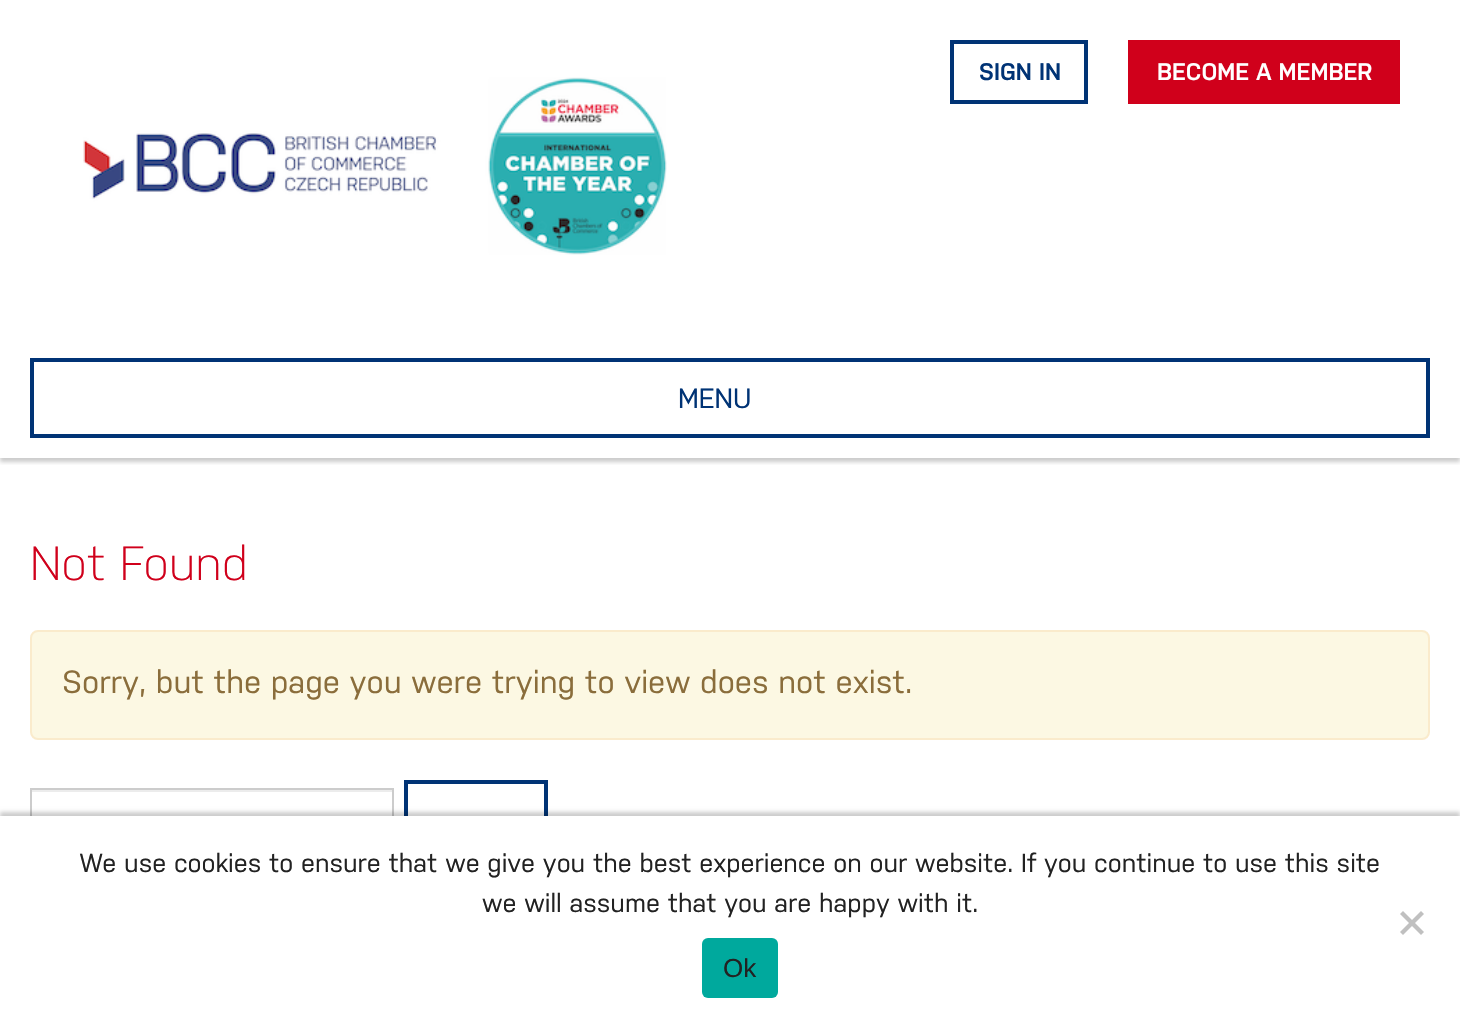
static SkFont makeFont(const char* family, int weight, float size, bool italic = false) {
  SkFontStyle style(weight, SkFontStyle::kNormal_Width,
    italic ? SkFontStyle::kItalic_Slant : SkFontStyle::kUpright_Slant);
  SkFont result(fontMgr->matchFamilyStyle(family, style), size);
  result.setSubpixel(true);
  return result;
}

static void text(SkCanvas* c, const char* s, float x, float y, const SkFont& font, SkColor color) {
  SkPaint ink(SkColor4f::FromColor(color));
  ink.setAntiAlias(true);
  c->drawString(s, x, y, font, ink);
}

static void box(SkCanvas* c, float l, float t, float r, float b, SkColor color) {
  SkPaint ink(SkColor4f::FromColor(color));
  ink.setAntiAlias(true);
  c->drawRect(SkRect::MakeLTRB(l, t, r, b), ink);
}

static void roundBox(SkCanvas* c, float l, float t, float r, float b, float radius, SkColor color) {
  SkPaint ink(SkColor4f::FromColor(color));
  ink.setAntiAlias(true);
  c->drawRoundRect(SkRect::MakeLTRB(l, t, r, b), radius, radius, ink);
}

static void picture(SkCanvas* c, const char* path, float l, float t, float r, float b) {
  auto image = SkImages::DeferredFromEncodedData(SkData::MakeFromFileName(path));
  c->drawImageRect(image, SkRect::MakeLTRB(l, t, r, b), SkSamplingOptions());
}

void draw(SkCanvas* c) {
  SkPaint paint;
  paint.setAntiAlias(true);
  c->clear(0xffffffff);
  paint.setStyle(SkPaint::kStroke_Style);
  paint.setStrokeWidth(4);
  paint.setColor(0xff003375);
  c->drawRect(SkRect::MakeLTRB(952, 42, 1086, 102), paint);
  SkFont face1 = makeFont("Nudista", 600, 24);
  text(c, "SIGN IN", 979, 80, face1, 0xff003375);
  box(c, 1128, 40, 1400, 104, 0xffd0001b);
  text(c, "BECOME A MEMBER", 1157, 80, face1, 0xffffffff);
  picture(c, "img_01.png", 83, 77, 667, 255);
  c->save();
  c->clipRect(SkRect::MakeLTRB(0, 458, 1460, 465));
  paint.setStyle(SkPaint::kFill_Style);
  paint.setColor(0x33000000);
  paint.setMaskFilter(SkMaskFilter::MakeBlur(kNormal_SkBlurStyle, 2));
  c->drawRect(SkRect::MakeLTRB(0, 362, 1460, 462), paint);
  paint.setMaskFilter(nullptr);
  c->restore();
  paint.setStyle(SkPaint::kStroke_Style);
  paint.setColor(0xff003375);
  c->drawRect(SkRect::MakeLTRB(32, 360, 1428, 436), paint);
  SkFont face2 = makeFont("Nudista", 400, 28);
  text(c, "MENU", 678, 408, face2, 0xff003375);
  SkFont face3 = makeFont("Nudista", 300, 48);
  text(c, "Not Found", 30, 580, face3, 0xffd0001b);
  paint.setStyle(SkPaint::kFill_Style);
  paint.setColor(0xfffcf8e3);
  c->drawRoundRect(SkRect::MakeLTRB(31, 631, 1429, 739), 7, 7, paint);
  paint.setStyle(SkPaint::kStroke_Style);
  paint.setStrokeWidth(2);
  paint.setColor(0xfffaebcc);
  c->drawRoundRect(SkRect::MakeLTRB(31, 631, 1429, 739), 7, 7, paint);
  SkFont face4 = makeFont("Nudista", 400, 32);
  text(c, "Sorry, but the page you were trying to view does not exist.", 62, 693, face4, 0xff8a6d3b);
  box(c, 32, 790, 392, 792, 0xffececec);
  paint.setColor(0xffcccccc);
  c->drawRect(SkRect::MakeLTRB(31, 789, 393, 855), paint);
  paint.setStrokeWidth(4);
  paint.setColor(0xff003375);
  c->drawRect(SkRect::MakeLTRB(406, 782, 546, 858), paint);
  paint.setStyle(SkPaint::kFill_Style);
  paint.setColor(0x33000000);
  paint.setMaskFilter(SkMaskFilter::MakeBlur(kNormal_SkBlurStyle, 2));
  c->drawRect(SkRect::MakeLTRB(0, 812, 1460, 1024), paint);
  paint.setMaskFilter(nullptr);
  box(c, 0, 816, 1460, 1027, 0xffffffff);
  SkFont face5 = makeFont("Nudista", 400, 26);
  text(c, "We use cookies to ensure that we give you the best experience on our website. If you continue to use this site", 80, 872, face5, 0xff222222);
  text(c, "we will assume that you are happy with it.", 482, 912, face5, 0xff222222);
  paint.setColor(0xffc0c0c0);
  c->drawPath(SkPathBuilder().moveTo(1421, 911).lineTo(1424, 914).lineTo(1403, 935).lineTo(1400, 932).close().detach(), paint);
  c->drawPath(SkPathBuilder().moveTo(1400, 914).lineTo(1403, 911).lineTo(1424, 932).lineTo(1421, 935).close().detach(), paint);
  roundBox(c, 702, 938, 778, 998, 6, 0xff00a99d);
  SkFont face6 = makeFont("Liberation Sans", 400, 26);
  text(c, "Ok", 723, 977, face6, 0xff222222);
}
